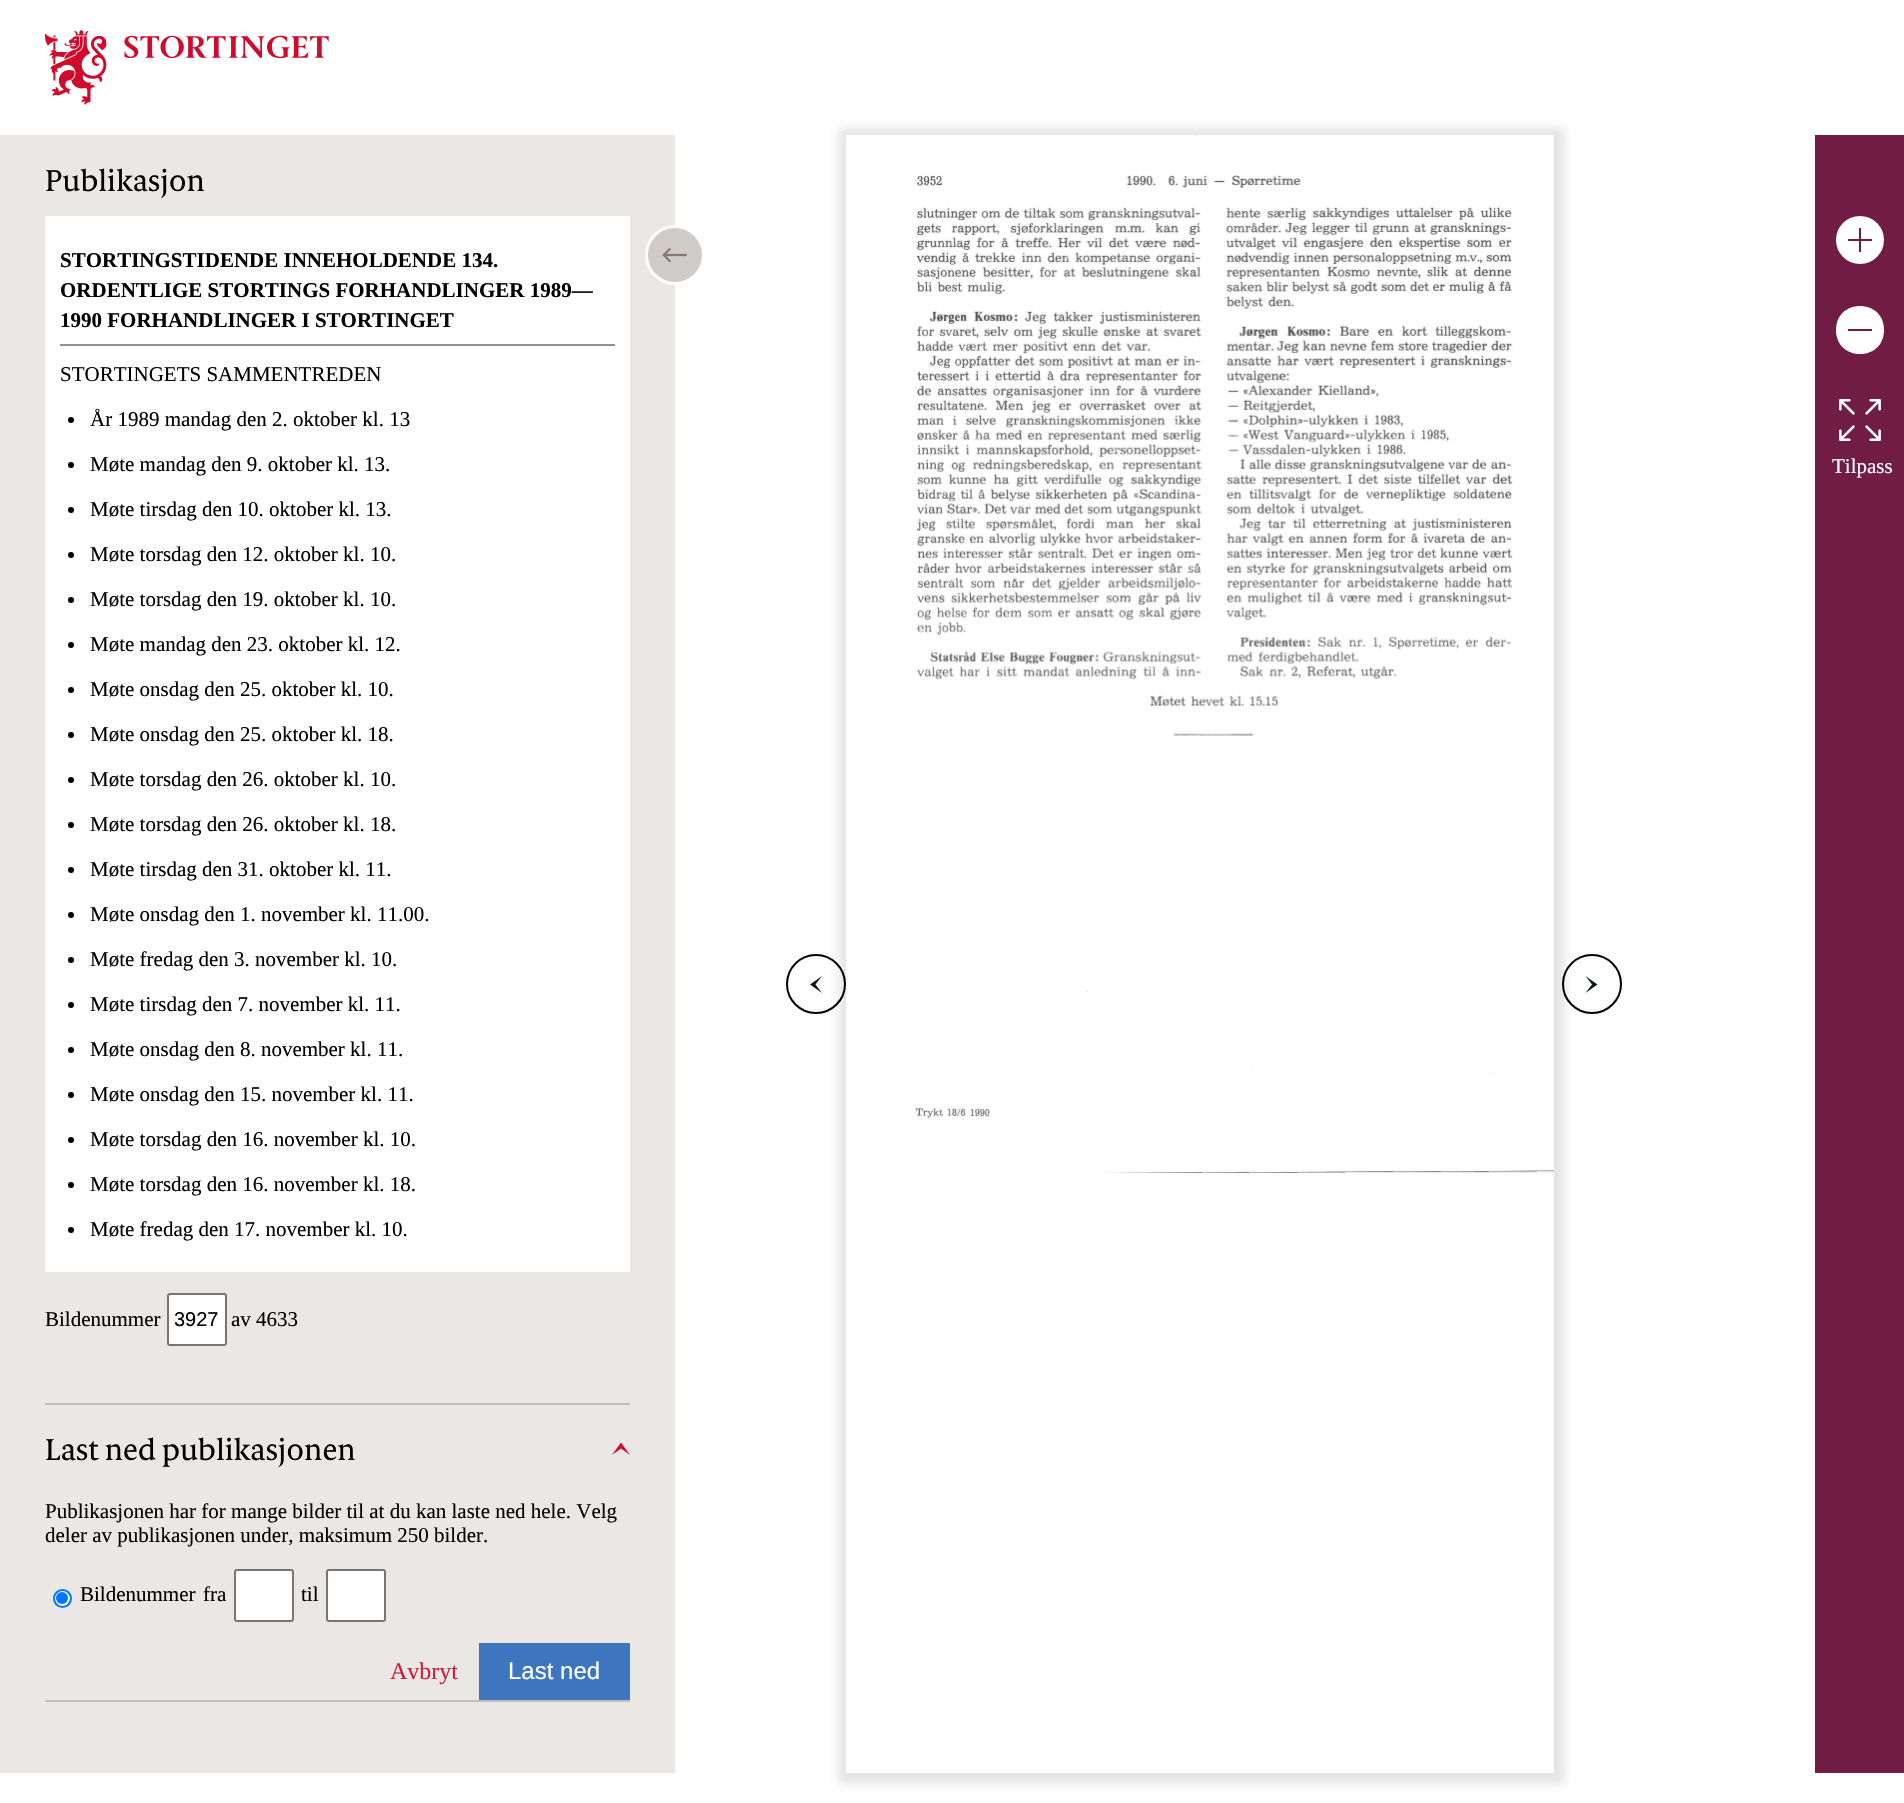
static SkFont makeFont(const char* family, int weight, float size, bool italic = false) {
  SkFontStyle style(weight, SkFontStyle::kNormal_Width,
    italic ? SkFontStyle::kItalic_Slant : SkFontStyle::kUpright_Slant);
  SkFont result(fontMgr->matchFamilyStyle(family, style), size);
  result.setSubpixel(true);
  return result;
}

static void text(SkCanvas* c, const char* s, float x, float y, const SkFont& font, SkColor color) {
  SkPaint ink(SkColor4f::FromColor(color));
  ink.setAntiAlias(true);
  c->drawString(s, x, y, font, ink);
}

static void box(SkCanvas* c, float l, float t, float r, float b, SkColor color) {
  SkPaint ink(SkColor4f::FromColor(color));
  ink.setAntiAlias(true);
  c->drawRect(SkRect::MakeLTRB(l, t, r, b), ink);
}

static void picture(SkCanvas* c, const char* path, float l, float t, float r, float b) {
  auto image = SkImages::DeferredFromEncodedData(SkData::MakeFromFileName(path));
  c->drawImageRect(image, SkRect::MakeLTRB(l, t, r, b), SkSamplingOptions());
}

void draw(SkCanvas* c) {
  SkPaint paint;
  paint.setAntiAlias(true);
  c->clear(0xffffffff);
  picture(c, "img_01.png", 45, 30, 329, 105);
  box(c, 0, 135, 675, 1773, 0xffebe7e4);
  SkFont face1 = makeFont("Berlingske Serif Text", 400, 30);
  text(c, "Publikasjon", 45, 191, face1, 0xff000000);
  box(c, 45, 216, 630, 1272, 0xffffffff);
  box(c, 60, 344, 615, 346, 0xff919191);
  SkFont face2 = makeFont("Liberation Serif", 700, 21);
  text(c, "STORTINGSTIDENDE INNEHOLDENDE 134.", 60, 267, face2, 0xff000000);
  text(c, "ORDENTLIGE STORTINGS FORHANDLINGER 1989—", 60, 297, face2, 0xff000000);
  text(c, "1990 FORHANDLINGER I STORTINGET", 60, 327, face2, 0xff000000);
  SkFont face3 = makeFont("Liberation Serif", 400, 21);
  text(c, "STORTINGETS SAMMENTREDEN", 60, 381, face3, 0xff000000);
  paint.setColor(0xff000000);
  c->drawCircle(71, 420, 3, paint);
  text(c, "År 1989 mandag den 2. oktober kl. 13", 90, 426, face3, 0xff000000);
  c->drawCircle(71, 465, 3, paint);
  text(c, "Møte mandag den 9. oktober kl. 13.", 90, 471, face3, 0xff000000);
  c->drawCircle(71, 510, 3, paint);
  text(c, "Møte tirsdag den 10. oktober kl. 13.", 90, 516, face3, 0xff000000);
  c->drawCircle(71, 555, 3, paint);
  text(c, "Møte torsdag den 12. oktober kl. 10.", 90, 561, face3, 0xff000000);
  c->drawCircle(71, 600, 3, paint);
  text(c, "Møte torsdag den 19. oktober kl. 10.", 90, 606, face3, 0xff000000);
  c->drawCircle(71, 645, 3, paint);
  text(c, "Møte mandag den 23. oktober kl. 12.", 90, 651, face3, 0xff000000);
  c->drawCircle(71, 690, 3, paint);
  text(c, "Møte onsdag den 25. oktober kl. 10.", 90, 696, face3, 0xff000000);
  c->drawCircle(71, 735, 3, paint);
  text(c, "Møte onsdag den 25. oktober kl. 18.", 90, 741, face3, 0xff000000);
  c->drawCircle(71, 780, 3, paint);
  text(c, "Møte torsdag den 26. oktober kl. 10.", 90, 786, face3, 0xff000000);
  c->drawCircle(71, 825, 3, paint);
  text(c, "Møte torsdag den 26. oktober kl. 18.", 90, 831, face3, 0xff000000);
  c->drawCircle(71, 870, 3, paint);
  text(c, "Møte tirsdag den 31. oktober kl. 11.", 90, 876, face3, 0xff000000);
  c->drawCircle(71, 915, 3, paint);
  text(c, "Møte onsdag den 1. november kl. 11.00.", 90, 921, face3, 0xff000000);
  c->drawCircle(71, 960, 3, paint);
  text(c, "Møte fredag den 3. november kl. 10.", 90, 966, face3, 0xff000000);
  c->drawCircle(71, 1005, 3, paint);
  text(c, "Møte tirsdag den 7. november kl. 11.", 90, 1011, face3, 0xff000000);
  c->drawCircle(71, 1050, 3, paint);
  text(c, "Møte onsdag den 8. november kl. 11.", 90, 1056, face3, 0xff000000);
  c->drawCircle(71, 1095, 3, paint);
  text(c, "Møte onsdag den 15. november kl. 11.", 90, 1101, face3, 0xff000000);
  c->drawCircle(71, 1140, 3, paint);
  text(c, "Møte torsdag den 16. november kl. 10.", 90, 1146, face3, 0xff000000);
  c->drawCircle(71, 1185, 3, paint);
  text(c, "Møte torsdag den 16. november kl. 18.", 90, 1191, face3, 0xff000000);
  c->drawCircle(71, 1230, 3, paint);
  text(c, "Møte fredag den 17. november kl. 10.", 90, 1236, face3, 0xff000000);
  text(c, "Bildenummer", 45, 1326, face3, 0xff000000);
  paint.setColor(0xffffffff);
  c->drawRoundRect(SkRect::MakeLTRB(168, 1294, 226, 1345), 2, 2, paint);
  paint.setStyle(SkPaint::kStroke_Style);
  paint.setStrokeWidth(2);
  paint.setColor(0xff767676);
  c->drawRoundRect(SkRect::MakeLTRB(168, 1294, 226, 1345), 2, 2, paint);
  SkFont face4 = makeFont("Liberation Sans", 400, 20);
  text(c, "3927", 174, 1326, face4, 0xff000000);
  text(c, "av 4633", 231, 1326, face3, 0xff000000);
  box(c, 45, 1700, 630, 1702, 0xffbdbfc1);
  box(c, 45, 1403, 630, 1405, 0xffbdbfc1);
  text(c, "Last ned publikasjonen", 45, 1460, face1, 0xff000000);
  paint.setStyle(SkPaint::kFill_Style);
  paint.setColor(0xffcf0a2c);
  c->drawPath(SkPathBuilder(SkPathFillType::kEvenOdd).moveTo(621, 1448.5f).lineTo(612, 1455).lineTo(621, 1442.5f).lineTo(630, 1455).close().detach(), paint);
  text(c, "Publikasjonen har for mange bilder til at du kan laste ned hele. Velg", 45, 1518, face3, 0xff000000);
  text(c, "deler av publikasjonen under, maksimum 250 bilder.", 45, 1542, face3, 0xff000000);
  paint.setColor(0xffffffff);
  c->drawCircle(62.5f, 1598.5f, 8.5f, paint);
  paint.setStyle(SkPaint::kStroke_Style);
  paint.setColor(0xff0075ff);
  c->drawCircle(62.5f, 1598.5f, 8.5f, paint);
  paint.setStyle(SkPaint::kFill_Style);
  c->drawCircle(62, 1598, 6, paint);
  text(c, "Bildenummer", 80, 1601, face3, 0xff000000);
  text(c, "fra", 203, 1601, face3, 0xff000000);
  paint.setColor(0xffffffff);
  c->drawRoundRect(SkRect::MakeLTRB(235, 1570, 293, 1621), 2, 2, paint);
  paint.setStyle(SkPaint::kStroke_Style);
  paint.setColor(0xff767676);
  c->drawRoundRect(SkRect::MakeLTRB(235, 1570, 293, 1621), 2, 2, paint);
  text(c, "til", 301, 1601, face3, 0xff000000);
  paint.setStyle(SkPaint::kFill_Style);
  paint.setColor(0xffffffff);
  c->drawRoundRect(SkRect::MakeLTRB(327, 1570, 385, 1621), 2, 2, paint);
  paint.setStyle(SkPaint::kStroke_Style);
  paint.setColor(0xff767676);
  c->drawRoundRect(SkRect::MakeLTRB(327, 1570, 385, 1621), 2, 2, paint);
  SkFont face5 = makeFont("Liberation Serif", 400, 24);
  text(c, "Avbryt", 390, 1679, face5, 0xffcf1b38);
  box(c, 479, 1643, 630, 1700, 0xff3e75bf);
  SkFont face6 = makeFont("Liberation Sans", 400, 24);
  text(c, "Last ned", 508, 1679, face6, 0xffffffff);
  paint.setStyle(SkPaint::kFill_Style);
  paint.setColor(0xffcecbc9);
  c->drawCircle(675, 255, 28.5f, paint);
  paint.setStyle(SkPaint::kStroke_Style);
  paint.setStrokeWidth(3);
  paint.setColor(0xffffffff);
  c->drawCircle(675, 255, 28.5f, paint);
  picture(c, "img_02.png", 662, 248, 687, 263);
  paint.setStrokeWidth(2);
  paint.setColor(0xff000000);
  c->drawCircle(816, 984, 29, paint);
  paint.setStyle(SkPaint::kFill_Style);
  paint.setColor(0xff111820);
  c->drawPath(SkPathBuilder().moveTo(815.5f, 984.5f).lineTo(822, 993).lineTo(810, 984.5f).lineTo(822, 976).close().detach(), paint);
  c->save();
  c->clipPath(SkPathBuilder(SkPathFillType::kEvenOdd).moveTo(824, 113).lineTo(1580, 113).lineTo(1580, 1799).lineTo(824, 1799).close().moveTo(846, 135).lineTo(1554, 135).lineTo(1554, 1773).lineTo(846, 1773).close().detach(), true);
  paint.setColor(0x1a000000);
  paint.setMaskFilter(SkMaskFilter::MakeBlur(kNormal_SkBlurStyle, 4.5f));
  c->drawRect(SkRect::MakeLTRB(839, 128, 1565, 1784), paint);
  paint.setMaskFilter(nullptr);
  c->restore();
  picture(c, "img_03.png", 915, 135, 1554, 1173);
  paint.setStyle(SkPaint::kStroke_Style);
  paint.setColor(0xff000000);
  c->drawCircle(1592, 984, 29, paint);
  paint.setStyle(SkPaint::kFill_Style);
  paint.setColor(0xff111820);
  c->drawPath(SkPathBuilder(SkPathFillType::kEvenOdd).moveTo(1592, 984.5f).lineTo(1585.5f, 976).lineTo(1597.5f, 984.5f).lineTo(1585.5f, 993).close().detach(), paint);
  box(c, 1815, 135, 1904, 1773, 0xff701c45);
  paint.setColor(0xffffffff);
  c->drawCircle(1860, 240, 24, paint);
  paint.setColor(0xff701c45);
  c->drawPath(SkPathBuilder(SkPathFillType::kEvenOdd).moveTo(1861, 239).lineTo(1861, 228).lineTo(1859, 228).lineTo(1859, 239).lineTo(1848, 239).lineTo(1848, 241).lineTo(1859, 241).lineTo(1859, 252).lineTo(1861, 252).lineTo(1861, 241).lineTo(1872, 241).lineTo(1872, 239).close().detach(), paint);
  paint.setColor(0xffffffff);
  c->drawPath(SkPathBuilder(SkPathFillType::kEvenOdd).moveTo(1884, 330).cubicTo(1884, 362, 1836, 362, 1836, 330).cubicTo(1836, 298, 1884, 298, 1884, 330).close().detach(), paint);
  box(c, 1848, 329, 1872, 331, 0xff701c45);
  picture(c, "img_04.png", 1839, 399, 1881, 441);
  text(c, "Tilpass", 1832, 473, face3, 0xffffffff);
}
